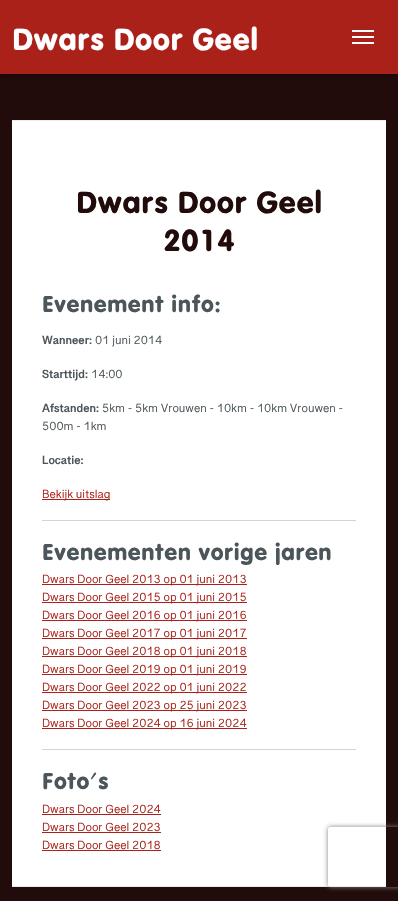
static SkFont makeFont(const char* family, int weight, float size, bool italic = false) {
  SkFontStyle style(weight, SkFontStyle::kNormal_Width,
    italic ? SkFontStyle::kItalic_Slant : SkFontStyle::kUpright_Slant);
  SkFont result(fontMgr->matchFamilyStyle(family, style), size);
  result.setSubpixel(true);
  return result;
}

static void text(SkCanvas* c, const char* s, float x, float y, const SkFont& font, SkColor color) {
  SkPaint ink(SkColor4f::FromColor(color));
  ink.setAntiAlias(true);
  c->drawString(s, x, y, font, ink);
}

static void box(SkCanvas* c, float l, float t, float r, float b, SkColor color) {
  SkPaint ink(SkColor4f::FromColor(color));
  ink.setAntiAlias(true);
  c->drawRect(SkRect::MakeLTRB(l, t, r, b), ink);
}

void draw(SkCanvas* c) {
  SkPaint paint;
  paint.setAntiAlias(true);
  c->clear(0xff220b0b);
  paint.setColor(0x80000000);
  paint.setMaskFilter(SkMaskFilter::MakeBlur(kNormal_SkBlurStyle, 4.5f));
  c->drawRect(SkRect::MakeLTRB(0, 0, 398, 74), paint);
  paint.setMaskFilter(nullptr);
  box(c, 0, 0, 398, 74, 0xffa92119);
  SkFont face1 = makeFont("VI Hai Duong", 400, 32);
  text(c, "Dwars Door Geel", 12, 50, face1, 0xffffffff);
  box(c, 352, 30, 374, 32, 0xffffffff);
  box(c, 352, 36, 374, 38, 0xffffffff);
  box(c, 352, 42, 374, 44, 0xffffffff);
  box(c, 12, 121, 386, 886, 0xffffffff);
  box(c, 12, 120, 386, 121, 0xffeaecee);
  box(c, 12, 886, 386, 887, 0xffeaecee);
  text(c, "Dwars Door Geel", 76, 213, face1, 0xff220b0b);
  text(c, "2014", 163, 251, face1, 0xff220b0b);
  SkFont face2 = makeFont("VI Hai Duong", 400, 24);
  text(c, "Evenement info:", 42, 312, face2, 0xff4c555a);
  SkFont face3 = makeFont("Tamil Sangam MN", 700, 12);
  text(c, "Wanneer:", 42, 344, face3, 0xff4c555a);
  SkFont face4 = makeFont("Tamil Sangam MN", 400, 12);
  text(c, "01 juni 2014", 95, 344, face4, 0xff4c555a);
  text(c, "Starttijd:", 42, 378, face3, 0xff4c555a);
  text(c, "14:00", 91, 378, face4, 0xff4c555a);
  text(c, "Afstanden:", 42, 412, face3, 0xff4c555a);
  text(c, "5km - 5km Vrouwen - 10km - 10km Vrouwen -", 102, 412, face4, 0xff4c555a);
  text(c, "500m - 1km", 42, 430, face4, 0xff4c555a);
  text(c, "Locatie:", 42, 464, face3, 0xff4c555a);
  box(c, 42, 499, 110, 500, 0xffa92119);
  text(c, "Bekijk uitslag", 42, 498, face4, 0xffa92119);
  box(c, 42, 520, 356, 521, 0xffd2d5d6);
  text(c, "Evenementen vorige jaren", 42, 560, face2, 0xff4c555a);
  box(c, 42, 584, 247, 585, 0xffa92119);
  text(c, "Dwars Door Geel 2013 op 01 juni 2013", 42, 583, face4, 0xffa92119);
  box(c, 42, 602, 247, 603, 0xffa92119);
  text(c, "Dwars Door Geel 2015 op 01 juni 2015", 42, 601, face4, 0xffa92119);
  box(c, 42, 620, 247, 621, 0xffa92119);
  text(c, "Dwars Door Geel 2016 op 01 juni 2016", 42, 619, face4, 0xffa92119);
  box(c, 42, 638, 247, 639, 0xffa92119);
  text(c, "Dwars Door Geel 2017 op 01 juni 2017", 42, 637, face4, 0xffa92119);
  box(c, 42, 656, 247, 657, 0xffa92119);
  text(c, "Dwars Door Geel 2018 op 01 juni 2018", 42, 655, face4, 0xffa92119);
  box(c, 42, 674, 247, 675, 0xffa92119);
  text(c, "Dwars Door Geel 2019 op 01 juni 2019", 42, 673, face4, 0xffa92119);
  box(c, 42, 692, 247, 693, 0xffa92119);
  text(c, "Dwars Door Geel 2022 op 01 juni 2022", 42, 691, face4, 0xffa92119);
  box(c, 42, 710, 247, 711, 0xffa92119);
  text(c, "Dwars Door Geel 2023 op 25 juni 2023", 42, 709, face4, 0xffa92119);
  box(c, 42, 728, 247, 729, 0xffa92119);
  text(c, "Dwars Door Geel 2024 op 16 juni 2024", 42, 727, face4, 0xffa92119);
  box(c, 42, 749, 356, 750, 0xffd2d5d6);
  text(c, "Foto's", 42, 789, face2, 0xff4c555a);
  text(c, "Dwars Door Geel 2024", 42, 813, face4, 0xffa92119);
  box(c, 42, 814, 161, 815, 0xffa92119);
  text(c, "Dwars Door Geel 2023", 42, 831, face4, 0xffa92119);
  box(c, 42, 832, 161, 833, 0xffa92119);
  text(c, "Dwars Door Geel 2018", 42, 849, face4, 0xffa92119);
  box(c, 42, 850, 161, 851, 0xffa92119);
  c->save();
  c->clipPath(SkPathBuilder(SkPathFillType::kEvenOdd).moveTo(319, 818).lineTo(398, 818).lineTo(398, 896).lineTo(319, 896).close().moveTo(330, 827).lineTo(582, 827).cubicTo(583, 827, 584, 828, 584, 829).lineTo(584, 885).cubicTo(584, 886, 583, 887, 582, 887).lineTo(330, 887).cubicTo(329, 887, 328, 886, 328, 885).lineTo(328, 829).cubicTo(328, 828, 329, 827, 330, 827).close().detach(), true);
  paint.setColor(0xff808080);
  paint.setMaskFilter(SkMaskFilter::MakeBlur(kNormal_SkBlurStyle, 2.5f));
  c->drawRoundRect(SkRect::MakeLTRB(328, 827, 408, 887), 2, 2, paint);
  paint.setMaskFilter(nullptr);
  c->restore();
}
